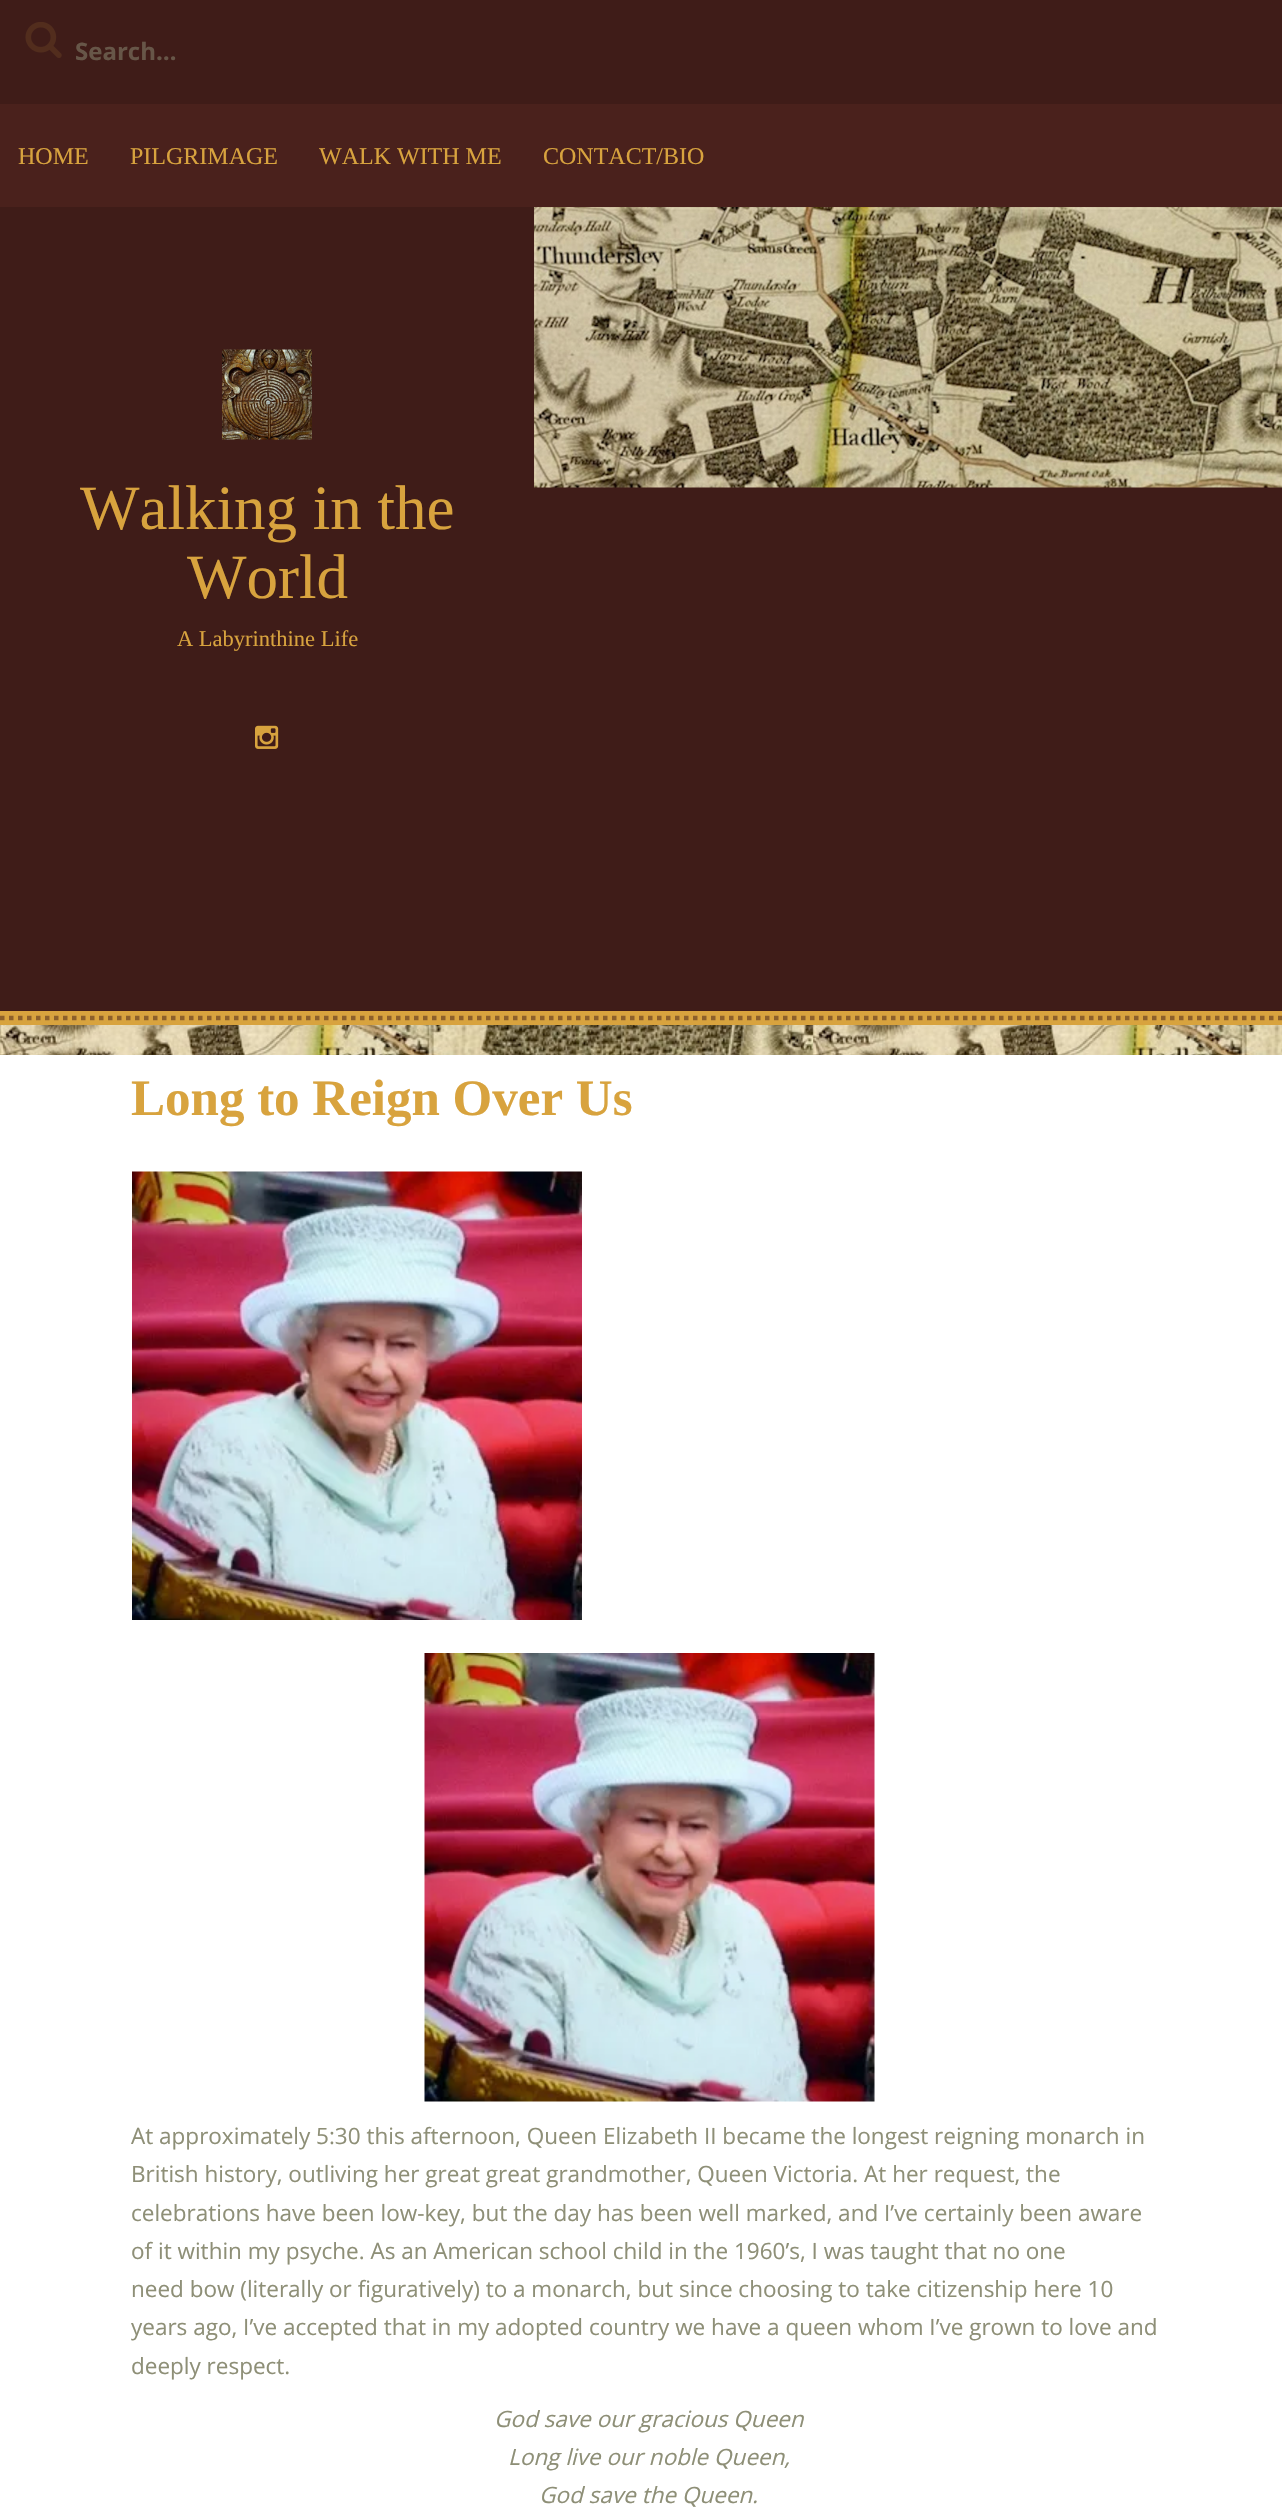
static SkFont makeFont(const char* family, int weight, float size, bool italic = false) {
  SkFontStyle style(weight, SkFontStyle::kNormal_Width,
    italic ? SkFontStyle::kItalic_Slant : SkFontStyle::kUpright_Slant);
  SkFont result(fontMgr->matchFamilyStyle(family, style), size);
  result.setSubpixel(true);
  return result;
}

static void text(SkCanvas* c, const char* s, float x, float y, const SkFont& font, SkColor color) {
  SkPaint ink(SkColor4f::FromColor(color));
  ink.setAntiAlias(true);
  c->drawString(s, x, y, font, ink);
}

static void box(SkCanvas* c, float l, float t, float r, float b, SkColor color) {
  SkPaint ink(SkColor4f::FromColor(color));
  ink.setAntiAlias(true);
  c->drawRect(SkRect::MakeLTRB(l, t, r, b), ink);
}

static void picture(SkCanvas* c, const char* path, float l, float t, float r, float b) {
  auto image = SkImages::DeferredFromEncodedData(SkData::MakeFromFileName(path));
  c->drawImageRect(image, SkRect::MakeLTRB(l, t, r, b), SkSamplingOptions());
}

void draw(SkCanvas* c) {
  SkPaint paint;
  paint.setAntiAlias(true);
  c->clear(0xffffffff);
  picture(c, "img_01.png", 0, 1025, 1282, 1055);
  box(c, 0, 0, 1282, 1011, 0xff3f1c18);
  picture(c, "img_02.png", 25, 22, 62, 58);
  SkFont face1 = makeFont("Open Sans", 700, 24);
  text(c, "Search…", 75, 60, face1, 0xff675648);
  box(c, 0, 104, 1282, 207, 0xff4a211c);
  SkFont face2 = makeFont("Liberation Serif", 400, 24);
  text(c, "HOME", 18, 164, face2, 0xffd8a33e);
  text(c, "PILGRIMAGE", 130, 164, face2, 0xffd8a33e);
  text(c, "WALK WITH ME", 319, 164, face2, 0xffd8a33e);
  text(c, "CONTACT/BIO", 543, 164, face2, 0xffd8a33e);
  box(c, 0, 1011, 1282, 1025, 0xffd8a33e);
  picture(c, "img_03.png", 534, 207, 1282, 488);
  picture(c, "img_04.png", 222, 349, 312, 440);
  SkFont face3 = makeFont("Liberation Serif", 400, 63);
  text(c, "Walking in the", 80, 529, face3, 0xffd8a33e);
  text(c, "World", 187, 598, face3, 0xffd8a33e);
  SkFont face4 = makeFont("Liberation Serif", 400, 22.5f);
  text(c, "A Labyrinthine Life", 177, 646, face4, 0xffd8a33e);
  picture(c, "img_05.png", 255, 725, 279, 749);
  paint.setStyle(SkPaint::kStroke_Style);
  paint.setStrokeWidth(4.5f);
  paint.setColor(0xff8c602b);
  paint.setPathEffect(SkDashPathEffect::Make({{4.5f, 4.5f}}, 0));
  c->drawPath(SkPathBuilder().moveTo(0, 1018).lineTo(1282.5f, 1018).detach(), paint);
  paint.setPathEffect(nullptr);
  SkFont face5 = makeFont("Liberation Serif", 700, 51);
  text(c, "Long to Reign Over Us", 131, 1115, face5, 0xffd8a33e);
  picture(c, "img_06.png", 132, 1171, 582, 1620);
  picture(c, "img_07.png", 424, 1653, 875, 2102);
  SkFont face6 = makeFont("Open Sans", 400, 22.5f);
  text(c, "At approximately 5:30 this afternoon, Queen Elizabeth II became the longest reigning monarch in", 131, 2144, face6, 0xff8e8f77);
  text(c, "British history, outliving her great great grandmother, Queen Victoria. At her request, the", 131, 2182, face6, 0xff8e8f77);
  text(c, "celebrations have been low-key, but the day has been well marked, and I’ve certainly been aware", 131, 2221, face6, 0xff8e8f77);
  text(c, "of it within my psyche. As an American school child in the 1960’s, I was taught that no one", 131, 2259, face6, 0xff8e8f77);
  text(c, "need bow (literally or figuratively) to a monarch, but since choosing to take citizenship here 10", 131, 2297, face6, 0xff8e8f77);
  text(c, "years ago, I’ve accepted that in my adopted country we have a queen whom I’ve grown to love and", 131, 2335, face6, 0xff8e8f77);
  text(c, "deeply respect.", 131, 2374, face6, 0xff8e8f77);
  SkFont face7 = makeFont("Open Sans", 400, 22.5f, true);
  text(c, "God save our gracious Queen", 494, 2427, face7, 0xff8e8f77);
  text(c, "Long live our noble Queen,", 508, 2465, face7, 0xff8e8f77);
  text(c, "God save the Queen.", 539, 2503, face7, 0xff8e8f77);
}
